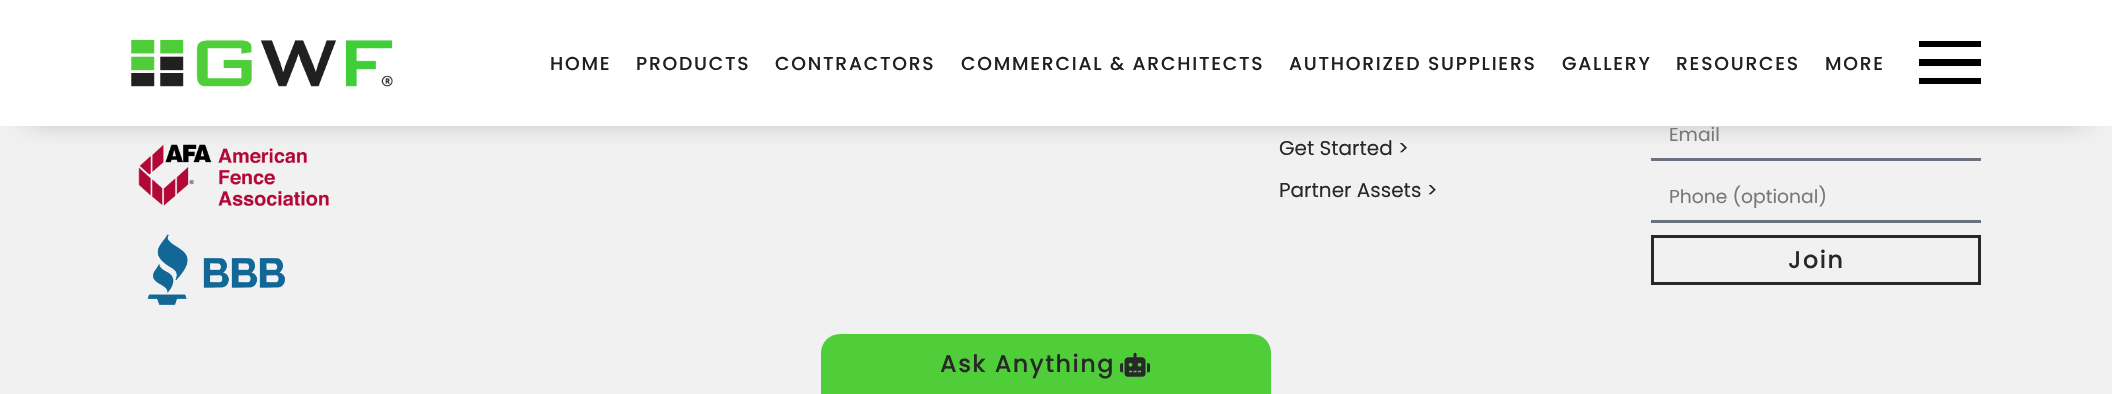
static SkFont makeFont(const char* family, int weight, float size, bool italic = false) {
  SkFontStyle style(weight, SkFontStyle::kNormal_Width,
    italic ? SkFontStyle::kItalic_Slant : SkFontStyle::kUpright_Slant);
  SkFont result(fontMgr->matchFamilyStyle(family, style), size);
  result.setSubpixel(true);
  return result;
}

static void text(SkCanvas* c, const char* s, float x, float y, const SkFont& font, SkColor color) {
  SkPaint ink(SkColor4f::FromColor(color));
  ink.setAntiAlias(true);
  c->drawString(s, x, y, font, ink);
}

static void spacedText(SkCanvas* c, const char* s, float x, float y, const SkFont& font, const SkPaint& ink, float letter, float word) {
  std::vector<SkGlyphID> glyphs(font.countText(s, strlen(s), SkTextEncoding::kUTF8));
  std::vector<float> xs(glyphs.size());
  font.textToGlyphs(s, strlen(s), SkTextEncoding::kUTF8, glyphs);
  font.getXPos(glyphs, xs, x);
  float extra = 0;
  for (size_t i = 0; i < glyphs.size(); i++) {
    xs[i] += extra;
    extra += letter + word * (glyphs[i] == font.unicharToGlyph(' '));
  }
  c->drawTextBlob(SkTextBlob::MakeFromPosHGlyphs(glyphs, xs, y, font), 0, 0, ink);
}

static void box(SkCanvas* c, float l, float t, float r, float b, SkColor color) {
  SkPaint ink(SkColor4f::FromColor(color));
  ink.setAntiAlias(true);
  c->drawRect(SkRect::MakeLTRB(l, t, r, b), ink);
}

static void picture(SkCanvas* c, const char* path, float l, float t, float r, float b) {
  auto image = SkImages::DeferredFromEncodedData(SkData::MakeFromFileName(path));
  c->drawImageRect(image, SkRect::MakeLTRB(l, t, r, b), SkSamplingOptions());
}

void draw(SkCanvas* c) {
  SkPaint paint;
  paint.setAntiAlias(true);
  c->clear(0xfff1f1f1);
  picture(c, "img_02.png", 138, 144, 329, 206);
  box(c, 1651, 158, 1981, 161, 0xff69727d);
  paint.setColor(0x80000000);
  paint.setMaskFilter(SkMaskFilter::MakeBlur(kNormal_SkBlurStyle, 15.5f));
  c->drawRect(SkRect::MakeLTRB(29, 44, 2084, 113), paint);
  paint.setMaskFilter(nullptr);
  box(c, 0, 0, 2112, 126, 0xffffffff);
  picture(c, "img_01.png", 131, 39, 393, 87);
  SkFont face1 = makeFont("Poppins", 500, 18.75f);
  paint.setColor(0xff202020);
  spacedText(c, "HOME", 550, 70, face1, paint, 1.75f, 0);
  spacedText(c, "PRODUCTS", 636, 70, face1, paint, 1.75f, 0);
  spacedText(c, "CONTRACTORS", 775, 70, face1, paint, 1.75f, 0);
  spacedText(c, "COMMERCIAL & ARCHITECTS", 961, 70, face1, paint, 1.75f, 0);
  spacedText(c, "AUTHORIZED SUPPLIERS", 1289, 70, face1, paint, 1.75f, 0);
  spacedText(c, "GALLERY", 1562, 70, face1, paint, 1.75f, 0);
  spacedText(c, "RESOURCES", 1676, 70, face1, paint, 1.75f, 0);
  spacedText(c, "MORE", 1825, 70, face1, paint, 1.75f, 0);
  paint.setColor(0xff000000);
  c->drawPath(SkPathBuilder().moveTo(1919, 41).lineTo(1919, 47).lineTo(1981, 47).lineTo(1981, 41).close().moveTo(1919, 59).lineTo(1919, 66).lineTo(1981, 66).lineTo(1981, 59).close().moveTo(1919, 78).lineTo(1919, 84).lineTo(1981, 84).lineTo(1981, 78).close().detach(), paint);
  picture(c, "img_03.png", 147, 234, 285, 305);
  SkFont face2 = makeFont("Poppins", 400, 20);
  text(c, "Get Started >", 1279, 155, face2, 0xff282828);
  text(c, "Partner Assets >", 1279, 197, face2, 0xff282828);
  SkFont face3 = makeFont("Poppins", 400, 18.75f);
  text(c, "Email", 1669, 141, face3, 0xff787878);
  box(c, 1651, 220, 1981, 223, 0xff69727d);
  text(c, "Phone (optional)", 1669, 203, face3, 0xff787878);
  paint.setStyle(SkPaint::kStroke_Style);
  paint.setStrokeWidth(3);
  paint.setColor(0xff282828);
  c->drawRect(SkRect::MakeLTRB(1652.5f, 236.5f, 1979.5f, 283.5f), paint);
  SkFont face4 = makeFont("Poppins", 500, 24);
  paint.setStyle(SkPaint::kFill_Style);
  spacedText(c, "Join", 1788, 268, face4, paint, 1.4f, 0);
  paint.setColor(0xff4fce39);
  c->drawPath(SkPathBuilder().moveTo(840, 334).lineTo(1252, 334).cubicTo(1262.5f, 334, 1271, 342.5f, 1271, 353).lineTo(1271, 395).lineTo(821, 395).lineTo(821, 353).cubicTo(821, 342.5f, 829.5f, 334, 840, 334).close().detach(), paint);
  paint.setColor(0xff282828);
  spacedText(c, "Ask Anything", 940, 372, face4, paint, 1.4f, 0);
  picture(c, "img_04.png", 1120, 352, 1151, 377);
}
